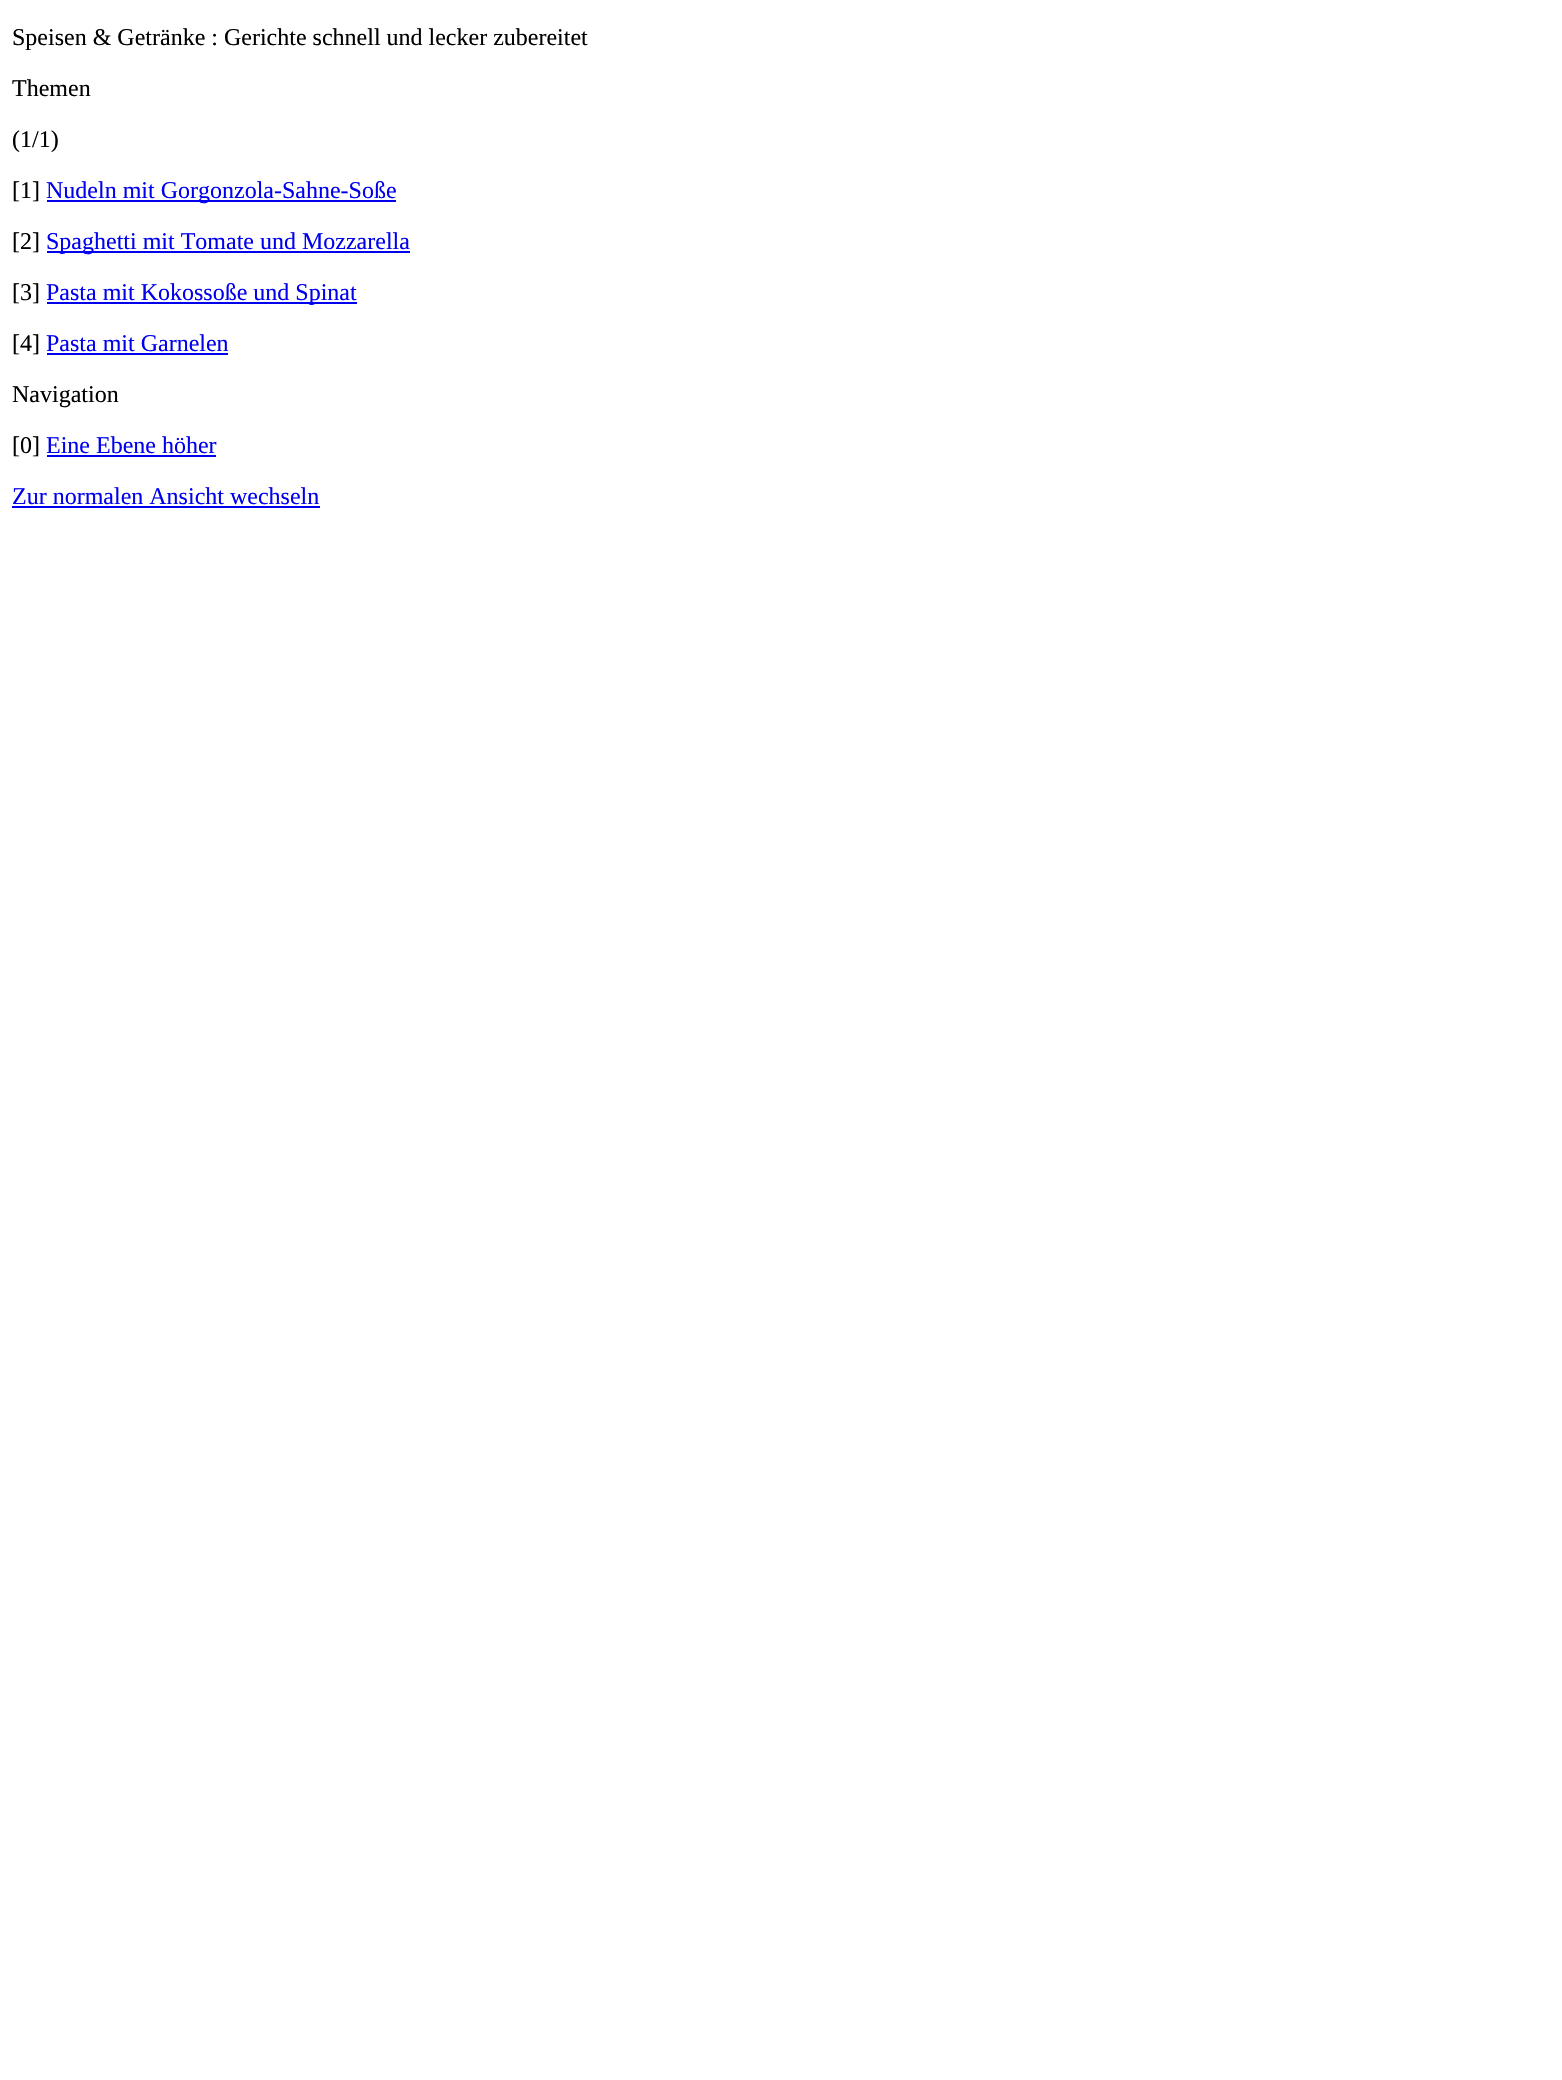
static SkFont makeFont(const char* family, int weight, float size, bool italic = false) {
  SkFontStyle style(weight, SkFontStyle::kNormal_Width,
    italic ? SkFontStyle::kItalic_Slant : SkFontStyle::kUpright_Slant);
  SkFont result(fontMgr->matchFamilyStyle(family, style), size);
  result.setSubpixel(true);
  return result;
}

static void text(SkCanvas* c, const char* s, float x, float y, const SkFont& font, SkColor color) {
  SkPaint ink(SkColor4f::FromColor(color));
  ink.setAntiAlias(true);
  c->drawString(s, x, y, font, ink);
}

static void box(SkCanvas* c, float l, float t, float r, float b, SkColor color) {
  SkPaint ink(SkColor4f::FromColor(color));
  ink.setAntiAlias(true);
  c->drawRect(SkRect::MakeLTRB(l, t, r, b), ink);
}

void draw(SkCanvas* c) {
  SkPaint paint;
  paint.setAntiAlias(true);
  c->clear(0xffffffff);
  SkFont face1 = makeFont("Liberation Serif", 400, 24);
  text(c, "Speisen & Getränke : Gerichte schnell und lecker zubereitet", 12, 45, face1, 0xff000000);
  text(c, "Themen", 12, 96, face1, 0xff000000);
  text(c, "(1/1)", 12, 147, face1, 0xff000000);
  text(c, "[1]", 12, 198, face1, 0xff000000);
  box(c, 47, 200, 396, 202, 0xff0000ee);
  text(c, "Nudeln mit Gorgonzola-Sahne-Soße", 46, 198, face1, 0xff0000ee);
  text(c, "[2]", 12, 249, face1, 0xff000000);
  box(c, 47, 251, 410, 253, 0xff0000ee);
  text(c, "Spaghetti mit Tomate und Mozzarella", 46, 249, face1, 0xff0000ee);
  text(c, "[3]", 12, 300, face1, 0xff000000);
  box(c, 47, 302, 357, 304, 0xff0000ee);
  text(c, "Pasta mit Kokossoße und Spinat", 46, 300, face1, 0xff0000ee);
  text(c, "[4]", 12, 351, face1, 0xff000000);
  text(c, "Pasta mit Garnelen", 46, 351, face1, 0xff0000ee);
  box(c, 47, 353, 228, 355, 0xff0000ee);
  text(c, "Navigation", 12, 402, face1, 0xff000000);
  text(c, "[0]", 12, 453, face1, 0xff000000);
  text(c, "Eine Ebene höher", 46, 453, face1, 0xff0000ee);
  box(c, 47, 455, 216, 457, 0xff0000ee);
  text(c, "Zur normalen Ansicht wechseln", 12, 504, face1, 0xff0000ee);
  box(c, 12, 506, 320, 508, 0xff0000ee);
}
